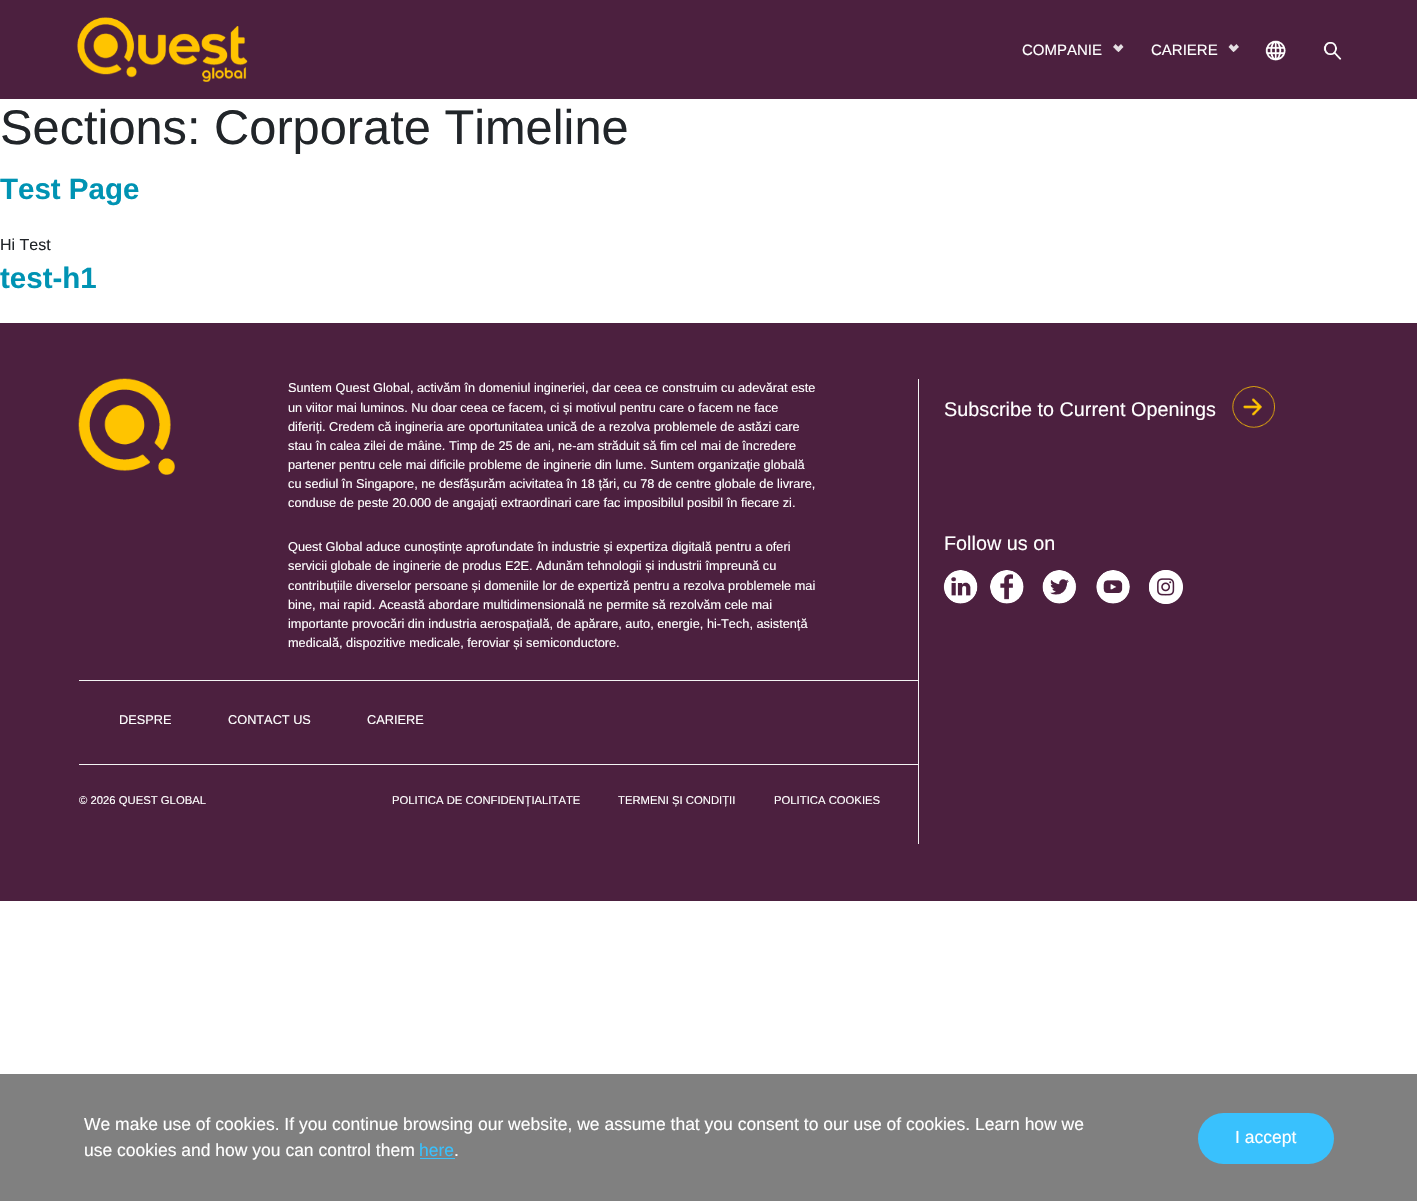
static SkFont makeFont(const char* family, int weight, float size, bool italic = false) {
  SkFontStyle style(weight, SkFontStyle::kNormal_Width,
    italic ? SkFontStyle::kItalic_Slant : SkFontStyle::kUpright_Slant);
  SkFont result(fontMgr->matchFamilyStyle(family, style), size);
  result.setSubpixel(true);
  return result;
}

static void text(SkCanvas* c, const char* s, float x, float y, const SkFont& font, SkColor color) {
  SkPaint ink(SkColor4f::FromColor(color));
  ink.setAntiAlias(true);
  c->drawString(s, x, y, font, ink);
}

static void box(SkCanvas* c, float l, float t, float r, float b, SkColor color) {
  SkPaint ink(SkColor4f::FromColor(color));
  ink.setAntiAlias(true);
  c->drawRect(SkRect::MakeLTRB(l, t, r, b), ink);
}

static void roundBox(SkCanvas* c, float l, float t, float r, float b, float radius, SkColor color) {
  SkPaint ink(SkColor4f::FromColor(color));
  ink.setAntiAlias(true);
  c->drawRoundRect(SkRect::MakeLTRB(l, t, r, b), radius, radius, ink);
}

static void picture(SkCanvas* c, const char* path, float l, float t, float r, float b) {
  auto image = SkImages::DeferredFromEncodedData(SkData::MakeFromFileName(path));
  c->drawImageRect(image, SkRect::MakeLTRB(l, t, r, b), SkSamplingOptions());
}

void draw(SkCanvas* c) {
  SkPaint paint;
  paint.setAntiAlias(true);
  c->clear(0xffffffff);
  box(c, 0, 0, 1417, 99, 0xff4c203f);
  picture(c, "img_01.png", 77, 17, 248, 82);
  SkFont face1 = makeFont("Liberation Sans", 400, 15);
  text(c, "COMPANIE", 1022, 55, face1, 0xffffffff);
  paint.setColor(0xffe4dee2);
  c->drawPath(SkPathBuilder().moveTo(1121, 44).lineTo(1123.5f, 47).lineTo(1118.5f, 52).lineTo(1115.5f, 49.5f).close().detach(), paint);
  c->drawPath(SkPathBuilder().moveTo(1115.5f, 44).lineTo(1121, 49.5f).lineTo(1118.5f, 52).lineTo(1113, 47).close().detach(), paint);
  text(c, "CARIERE", 1151, 55, face1, 0xffffffff);
  c->drawPath(SkPathBuilder().moveTo(1236.5f, 44).lineTo(1239, 47).lineTo(1233.5f, 52).lineTo(1231, 49.5f).close().detach(), paint);
  c->drawPath(SkPathBuilder().moveTo(1231, 44).lineTo(1236.5f, 49.5f).lineTo(1233.5f, 52).lineTo(1228.5f, 47).close().detach(), paint);
  picture(c, "img_02.png", 1265, 40, 1286, 61);
  picture(c, "img_03.png", 1323, 42, 1342, 60);
  SkFont face2 = makeFont("Liberation Sans", 400, 48.75f);
  text(c, "Sections: Corporate Timeline", 0, 144, face2, 0xff212529);
  SkFont face3 = makeFont("Liberation Sans", 700, 29.5f);
  text(c, "Test Page", 0, 199, face3, 0xff0093b3);
  SkFont face4 = makeFont("Liberation Sans", 400, 16);
  text(c, "Hi Test", 0, 250, face4, 0xff212529);
  text(c, "test-h1", 0, 288, face3, 0xff0093b3);
  box(c, 0, 323, 1417, 901, 0xff4c203f);
  box(c, 918, 379, 919, 844, 0xfff4f4f4);
  box(c, 79, 680, 918, 681, 0xfff4f4f4);
  picture(c, "img_04.png", 78, 378, 175, 475);
  SkFont face5 = makeFont("Liberation Sans", 400, 12.75f);
  text(c, "Suntem Quest Global, activăm în domeniul ingineriei, dar ceea ce construim cu adevărat este", 288, 392, face5, 0xffffffff);
  text(c, "un viitor mai luminos. Nu doar ceea ce facem, ci și motivul pentru care o facem ne face", 288, 412, face5, 0xffffffff);
  text(c, "diferiți. Credem că ingineria are oportunitatea unică de a rezolva problemele de astăzi care", 288, 431, face5, 0xffffffff);
  text(c, "stau în calea zilei de mâine. Timp de 25 de ani, ne-am străduit să fim cel mai de încredere", 288, 450, face5, 0xffffffff);
  text(c, "partener pentru cele mai dificile probleme de inginerie din lume. Suntem organizație globală", 288, 469, face5, 0xffffffff);
  text(c, "cu sediul în Singapore, ne desfășurăm acivitatea în 18 țări, cu 78 de centre globale de livrare,", 288, 488, face5, 0xffffffff);
  text(c, "conduse de peste 20.000 de angajați extraordinari care fac imposibilul posibil în fiecare zi.", 288, 507, face5, 0xffffffff);
  text(c, "Quest Global aduce cunoștințe aprofundate în industrie și expertiza digitală pentru a oferi", 288, 551, face5, 0xffffffff);
  text(c, "servicii globale de inginerie de produs E2E. Adunăm tehnologii și industrii împreună cu", 288, 570, face5, 0xffffffff);
  text(c, "contribuțiile diverselor persoane și domeniile lor de expertiză pentru a rezolva problemele mai", 288, 590, face5, 0xffffffff);
  text(c, "bine, mai rapid. Această abordare multidimensională ne permite să rezolvăm cele mai", 288, 609, face5, 0xffffffff);
  text(c, "importante provocări din industria aerospațială, de apărare, auto, energie, hi-Tech, asistență", 288, 628, face5, 0xffffffff);
  text(c, "medicală, dispozitive medicale, feroviar și semiconductore.", 288, 647, face5, 0xffffffff);
  box(c, 79, 764, 918, 765, 0xfff4f4f4);
  text(c, "DESPRE", 119, 724, face5, 0xffffffff);
  text(c, "CONTACT US", 228, 724, face5, 0xffffffff);
  text(c, "CARIERE", 367, 724, face5, 0xffffffff);
  SkFont face6 = makeFont("Liberation Sans", 400, 11.3f);
  text(c, "© 2026 QUEST GLOBAL", 79, 804, face6, 0xffffffff);
  text(c, "POLITICA DE CONFIDENȚIALITATE", 392, 804, face6, 0xffffffff);
  text(c, "TERMENI ȘI CONDIȚII", 618, 804, face6, 0xffffffff);
  text(c, "POLITICA COOKIES", 774, 804, face6, 0xffffffff);
  SkFont face7 = makeFont("Liberation Sans", 400, 19.8f);
  text(c, "Subscribe to Current Openings", 944, 416, face7, 0xffffffff);
  picture(c, "img_05.png", 1232, 386, 1275, 428);
  text(c, "Follow us on", 944, 550, face7, 0xffffffff);
  picture(c, "img_06.png", 943, 570, 978, 604);
  picture(c, "img_07.png", 990, 570, 1024, 604);
  picture(c, "img_08.png", 1042, 570, 1077, 604);
  picture(c, "img_09.png", 1096, 570, 1130, 604);
  picture(c, "img_10.png", 1149, 570, 1183, 604);
  box(c, 0, 1074, 1417, 1201, 0xff808080);
  SkFont face8 = makeFont("Liberation Sans", 400, 17.5f);
  text(c, "We make use of cookies. If you continue browsing our website, we assume that you consent to our use of cookies. Learn how we", 84, 1130, face8, 0xffffffff);
  text(c, "use cookies and how you can control them", 84, 1156, face8, 0xffffffff);
  text(c, "here", 419, 1156, face8, 0xff39c1fd);
  box(c, 420, 1158, 455, 1159, 0xff39c1fd);
  text(c, ".", 454, 1156, face8, 0xffffffff);
  roundBox(c, 1198, 1113, 1334, 1164, 25.5f, 0xff39c1fd);
  text(c, "I accept", 1235, 1143, face8, 0xffffffff);
}
